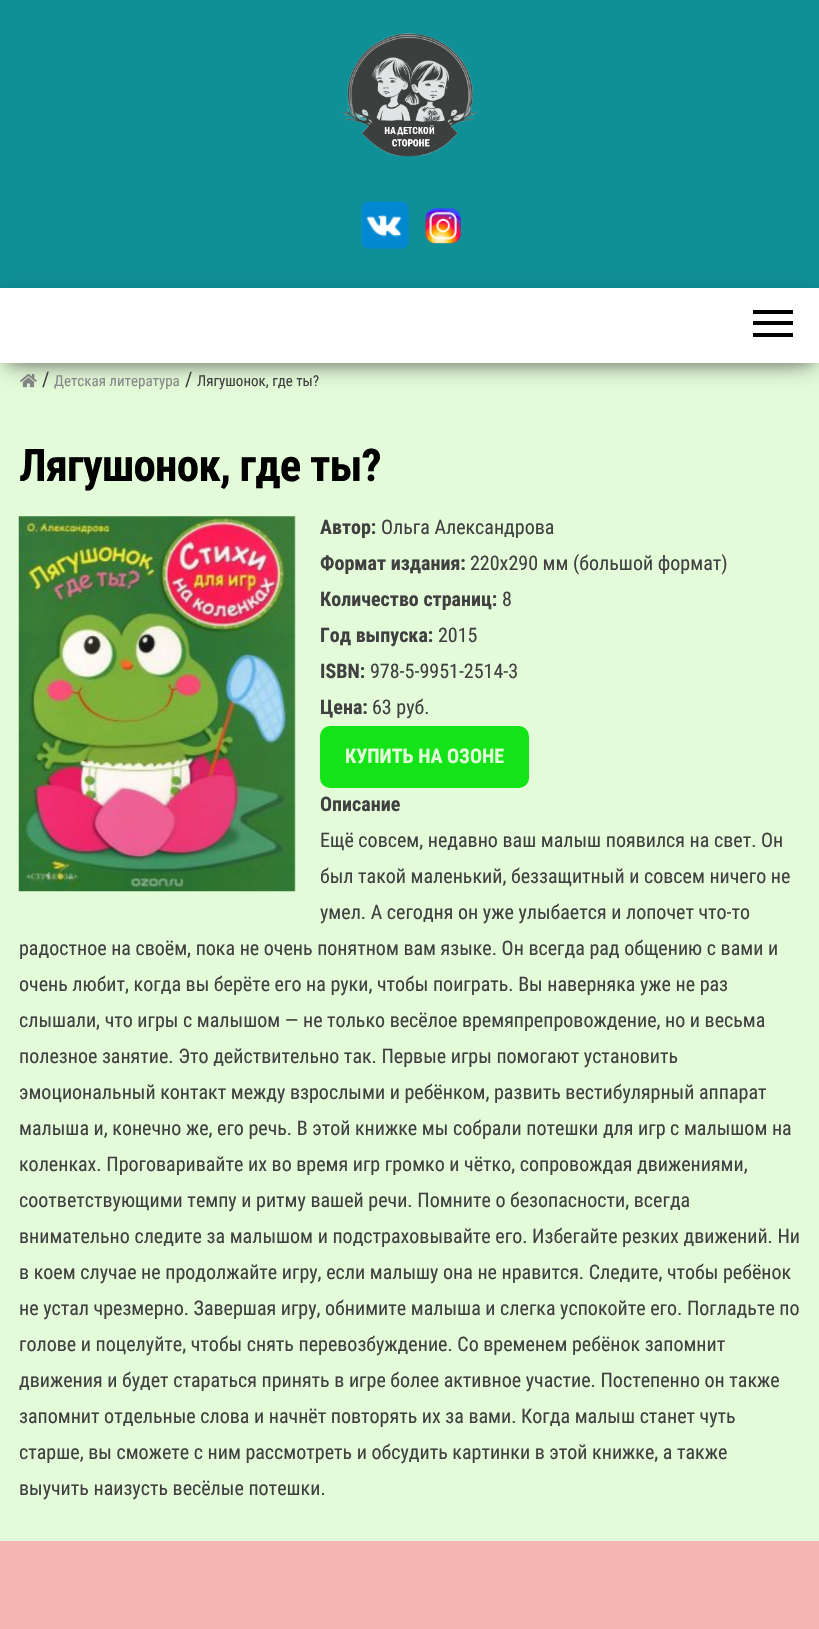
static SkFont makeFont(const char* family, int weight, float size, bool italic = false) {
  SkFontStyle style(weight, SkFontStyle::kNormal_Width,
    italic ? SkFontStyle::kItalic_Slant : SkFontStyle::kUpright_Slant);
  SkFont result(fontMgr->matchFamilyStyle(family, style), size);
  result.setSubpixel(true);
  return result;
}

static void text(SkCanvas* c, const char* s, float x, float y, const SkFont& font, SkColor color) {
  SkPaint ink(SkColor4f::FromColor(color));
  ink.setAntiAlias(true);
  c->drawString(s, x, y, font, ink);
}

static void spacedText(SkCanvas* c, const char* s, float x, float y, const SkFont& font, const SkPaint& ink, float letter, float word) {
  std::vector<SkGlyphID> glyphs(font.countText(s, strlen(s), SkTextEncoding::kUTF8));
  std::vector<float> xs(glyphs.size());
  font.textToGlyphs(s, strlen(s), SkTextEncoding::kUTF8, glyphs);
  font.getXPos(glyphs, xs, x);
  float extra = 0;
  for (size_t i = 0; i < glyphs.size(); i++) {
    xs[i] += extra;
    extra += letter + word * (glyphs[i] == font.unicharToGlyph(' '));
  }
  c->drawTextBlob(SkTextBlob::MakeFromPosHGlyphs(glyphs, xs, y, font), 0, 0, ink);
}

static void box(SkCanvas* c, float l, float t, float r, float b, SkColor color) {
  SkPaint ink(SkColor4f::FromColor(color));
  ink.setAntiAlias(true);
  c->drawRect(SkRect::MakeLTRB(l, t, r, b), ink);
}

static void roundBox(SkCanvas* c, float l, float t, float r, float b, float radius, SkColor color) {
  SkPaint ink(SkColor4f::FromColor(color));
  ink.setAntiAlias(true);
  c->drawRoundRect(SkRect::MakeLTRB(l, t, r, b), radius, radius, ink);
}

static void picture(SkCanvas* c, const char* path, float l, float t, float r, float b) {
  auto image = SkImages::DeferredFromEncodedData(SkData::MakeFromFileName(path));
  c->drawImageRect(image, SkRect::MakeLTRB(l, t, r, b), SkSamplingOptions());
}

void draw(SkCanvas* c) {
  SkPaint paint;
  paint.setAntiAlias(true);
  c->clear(0xfff4b6b2);
  box(c, 0, 0, 819, 288, 0xff0f9096);
  picture(c, "img_01.png", 341, 33, 479, 157);
  picture(c, "img_02.png", 361, 201, 409, 249);
  picture(c, "img_03.png", 425, 208, 461, 244);
  box(c, 0, 363, 819, 1541, 0xffe4fbda);
  picture(c, "img_04.png", 20, 374, 37, 388);
  paint.setColor(0x33000000);
  paint.setMaskFilter(SkMaskFilter::MakeBlur(kNormal_SkBlurStyle, 6));
  c->drawRect(SkRect::MakeLTRB(6, 304, 814, 366), paint);
  paint.setMaskFilter(nullptr);
  paint.setColor(0x1f000000);
  paint.setMaskFilter(SkMaskFilter::MakeBlur(kNormal_SkBlurStyle, 12.5f));
  c->drawRect(SkRect::MakeLTRB(0, 291, 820, 366), paint);
  paint.setMaskFilter(nullptr);
  paint.setColor(0x6b000000);
  paint.setMaskFilter(SkMaskFilter::MakeBlur(kNormal_SkBlurStyle, 12.5f));
  c->drawRect(SkRect::MakeLTRB(15, 315, 805, 360), paint);
  paint.setMaskFilter(nullptr);
  box(c, 0, 288, 819, 363, 0xffffffff);
  box(c, 753, 310, 793, 314, 0xff000000);
  box(c, 753, 321, 793, 325, 0xff000000);
  box(c, 753, 333, 793, 337, 0xff000000);
  SkFont face1 = makeFont("Roboto Condensed", 400, 20);
  text(c, "/", 42, 386, face1, 0xff404040);
  SkFont face2 = makeFont("Roboto Condensed", 400, 15);
  text(c, "Детская литература", 54, 386, face2, 0xff888888);
  text(c, "/", 185, 386, face1, 0xff404040);
  text(c, "Лягушонок, где ты?", 197, 386, face2, 0xff404040);
  SkFont face3 = makeFont("Roboto Condensed", 700, 45);
  paint.setColor(0xff000000);
  spacedText(c, "Лягушонок, где ты?", 19, 481, face3, paint, -0.9f, 0);
  picture(c, "img_05.png", 18, 516, 296, 892);
  SkFont face4 = makeFont("Roboto Condensed", 700, 20);
  text(c, "Автор:", 320, 534, face4, 0xff404040);
  text(c, "Ольга Александрова", 381, 534, face1, 0xff404040);
  text(c, "Формат издания:", 320, 570, face4, 0xff404040);
  text(c, "220х290 мм (большой формат)", 470, 570, face1, 0xff404040);
  text(c, "Количество страниц:", 320, 606, face4, 0xff404040);
  text(c, "8", 502, 606, face1, 0xff404040);
  text(c, "Год выпуска:", 320, 642, face4, 0xff404040);
  text(c, "2015", 438, 642, face1, 0xff404040);
  text(c, "ISBN:", 320, 678, face4, 0xff404040);
  text(c, "978-5-9951-2514-3", 370, 678, face1, 0xff404040);
  text(c, "Цена:", 320, 714, face4, 0xff404040);
  text(c, "63 руб.", 372, 714, face1, 0xff404040);
  roundBox(c, 320, 726, 529, 788, 10, 0xff12e418);
  text(c, "КУПИТЬ НА ОЗОНЕ", 345, 763, face4, 0xffe4fbda);
  text(c, "Описание", 320, 811, face4, 0xff404040);
  text(c, "Ещё совсем, недавно ваш малыш появился на свет. Он", 320, 847, face1, 0xff404040);
  text(c, "был такой маленький, беззащитный и совсем ничего не", 320, 883, face1, 0xff404040);
  text(c, "умел. А сегодня он уже улыбается и лопочет что-то", 320, 919, face1, 0xff404040);
  text(c, "радостное на своём, пока не очень понятном вам языке. Он всегда рад общению с вами и", 19, 955, face1, 0xff404040);
  text(c, "очень любит, когда вы берёте его на руки, чтобы поиграть. Вы наверняка уже не раз", 19, 991, face1, 0xff404040);
  text(c, "слышали, что игры с малышом — не только весёлое времяпрепровождение, но и весьма", 19, 1027, face1, 0xff404040);
  text(c, "полезное занятие. Это действительно так. Первые игры помогают установить", 19, 1063, face1, 0xff404040);
  text(c, "эмоциональный контакт между взрослыми и ребёнком, развить вестибулярный аппарат", 19, 1099, face1, 0xff404040);
  text(c, "малыша и, конечно же, его речь. В этой книжке мы собрали потешки для игр с малышом на", 19, 1135, face1, 0xff404040);
  text(c, "коленках. Проговаривайте их во время игр громко и чётко, сопровождая движениями,", 19, 1171, face1, 0xff404040);
  text(c, "соответствующими темпу и ритму вашей речи. Помните о безопасности, всегда", 19, 1207, face1, 0xff404040);
  text(c, "внимательно следите за малышом и подстраховывайте его. Избегайте резких движений. Ни", 19, 1243, face1, 0xff404040);
  text(c, "в коем случае не продолжайте игру, если малышу она не нравится. Следите, чтобы ребёнок", 19, 1279, face1, 0xff404040);
  text(c, "не устал чрезмерно. Завершая игру, обнимите малыша и слегка успокойте его. Погладьте по", 19, 1315, face1, 0xff404040);
  text(c, "голове и поцелуйте, чтобы снять перевозбуждение. Со временем ребёнок запомнит", 19, 1351, face1, 0xff404040);
  text(c, "движения и будет стараться принять в игре более активное участие. Постепенно он также", 19, 1387, face1, 0xff404040);
  text(c, "запомнит отдельные слова и начнёт повторять их за вами. Когда малыш станет чуть", 19, 1423, face1, 0xff404040);
  text(c, "старше, вы сможете с ним рассмотреть и обсудить картинки в этой книжке, а также", 19, 1459, face1, 0xff404040);
  text(c, "выучить наизусть весёлые потешки.", 19, 1495, face1, 0xff404040);
}
